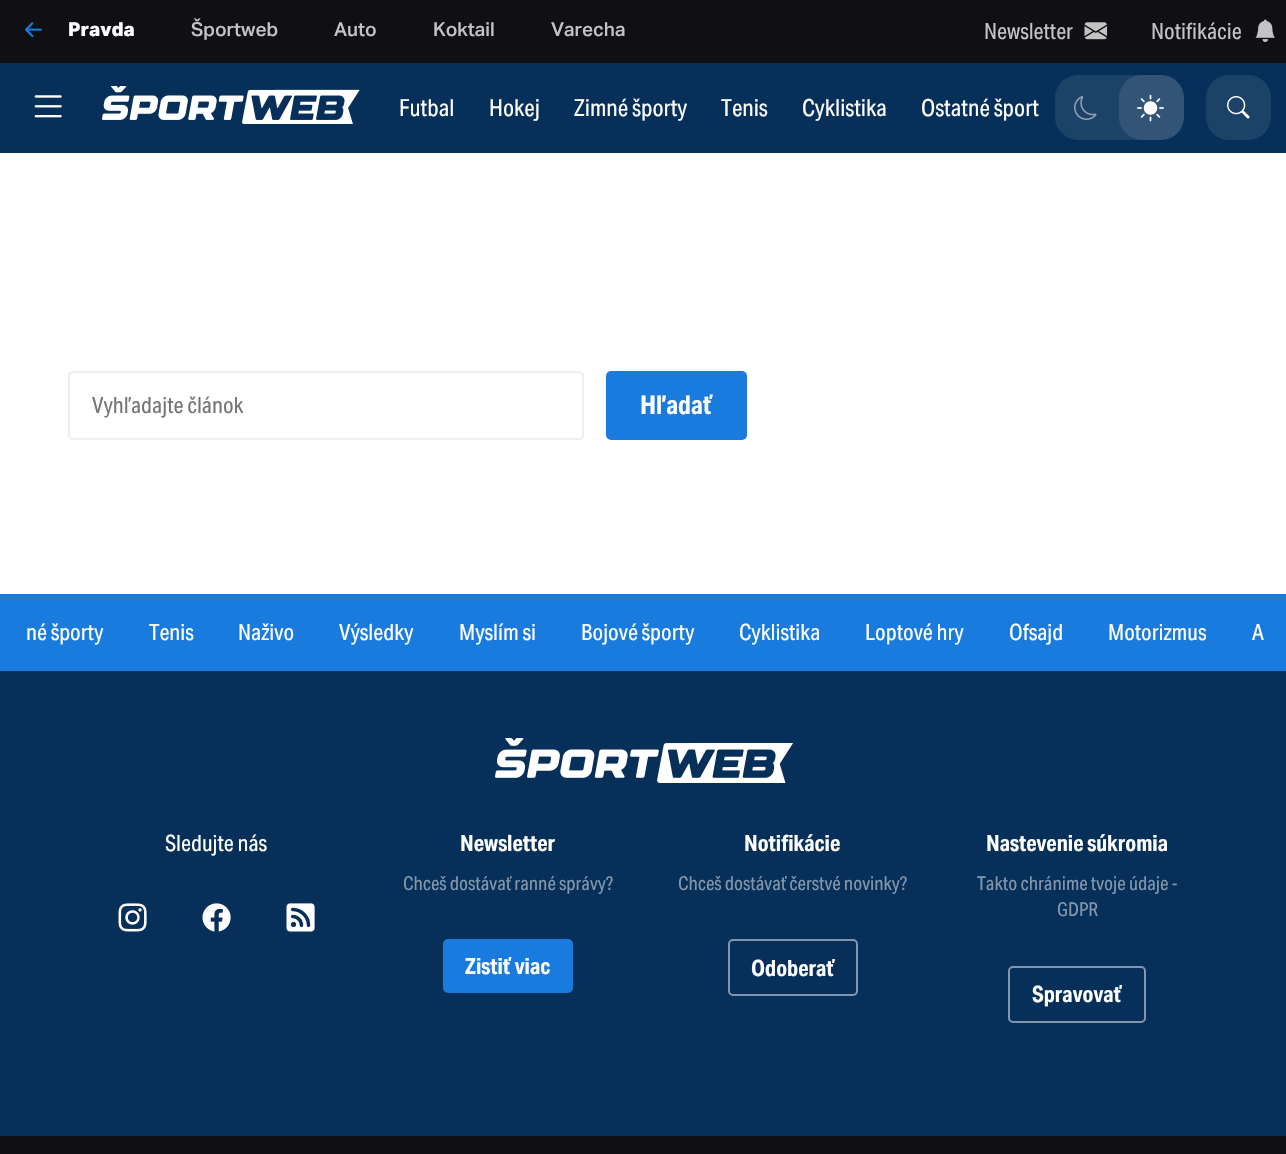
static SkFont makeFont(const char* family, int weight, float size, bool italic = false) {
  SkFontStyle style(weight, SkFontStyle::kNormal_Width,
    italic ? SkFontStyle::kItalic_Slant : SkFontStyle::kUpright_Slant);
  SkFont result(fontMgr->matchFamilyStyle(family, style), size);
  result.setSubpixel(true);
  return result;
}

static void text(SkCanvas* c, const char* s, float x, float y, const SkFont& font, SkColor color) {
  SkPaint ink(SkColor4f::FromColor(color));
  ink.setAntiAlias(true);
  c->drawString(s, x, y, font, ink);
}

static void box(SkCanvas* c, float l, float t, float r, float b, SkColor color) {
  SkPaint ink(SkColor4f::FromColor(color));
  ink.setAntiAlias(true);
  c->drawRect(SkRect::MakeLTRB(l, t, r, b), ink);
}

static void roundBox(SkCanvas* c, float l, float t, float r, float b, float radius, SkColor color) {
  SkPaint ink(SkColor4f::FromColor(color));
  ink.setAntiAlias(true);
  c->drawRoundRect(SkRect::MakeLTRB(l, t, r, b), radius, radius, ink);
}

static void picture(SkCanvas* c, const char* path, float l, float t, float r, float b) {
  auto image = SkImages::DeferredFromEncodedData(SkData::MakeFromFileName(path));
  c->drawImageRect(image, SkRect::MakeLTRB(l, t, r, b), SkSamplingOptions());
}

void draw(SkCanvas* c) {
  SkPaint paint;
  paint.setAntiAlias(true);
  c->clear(0xffffffff);
  box(c, 0, 0, 1286, 63, 0xff0f0f14);
  picture(c, "img_01.png", 25, 22, 42, 37);
  SkFont face1 = makeFont("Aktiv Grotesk", 700, 19.1f);
  text(c, "Pravda", 68, 36, face1, 0xffffffff);
  SkFont face2 = makeFont("Aktiv Grotesk", 500, 19.1f);
  text(c, "Športweb", 191, 36, face2, 0xffc3c3c4);
  text(c, "Auto", 334, 36, face2, 0xffc3c3c4);
  text(c, "Koktail", 433, 36, face2, 0xffc3c3c4);
  text(c, "Varecha", 551, 36, face2, 0xffc3c3c4);
  SkFont face3 = makeFont("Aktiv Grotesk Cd", 400, 22.5f);
  text(c, "Newsletter", 984, 39, face3, 0xffc3c3c4);
  picture(c, "img_02.png", 1084, 22, 1107, 40);
  text(c, "Notifikácie", 1151, 39, face3, 0xffc3c3c4);
  picture(c, "img_03.png", 1255, 19, 1275, 42);
  box(c, 0, 63, 1286, 153, 0xff062f59);
  picture(c, "img_04.png", 34, 95, 62, 118);
  picture(c, "img_05.png", 102, 86, 360, 124);
  SkFont face4 = makeFont("Aktiv Grotesk Cd", 400, 23.5f);
  text(c, "Futbal", 399, 116, face4, 0xffffffff);
  text(c, "Hokej", 489, 116, face4, 0xffffffff);
  text(c, "Zimné športy", 574, 116, face4, 0xffffffff);
  text(c, "Tenis", 721, 116, face4, 0xffffffff);
  text(c, "Cyklistika", 802, 116, face4, 0xffffffff);
  text(c, "Ostatné šport", 921, 116, face4, 0xffffffff);
  roundBox(c, 1055, 75, 1184, 140, 23, 0xff1d4268);
  picture(c, "img_07.png", 1137, 95, 1164, 122);
  roundBox(c, 1119, 75, 1184, 140, 23, 0x1aeeeeee);
  picture(c, "img_06.png", 1074, 96, 1097, 120);
  roundBox(c, 1206, 75, 1271, 140, 23, 0xff1d4268);
  picture(c, "img_08.png", 1227, 96, 1250, 119);
  paint.setStyle(SkPaint::kStroke_Style);
  paint.setStrokeWidth(2);
  paint.setColor(0xffeeeeee);
  c->drawRoundRect(SkRect::MakeLTRB(69, 372, 583, 439), 4, 4, paint);
  text(c, "Vyhľadajte článok", 92, 413, face3, 0xff757575);
  roundBox(c, 606, 371, 747, 440, 5, 0xff1a7bde);
  SkFont face5 = makeFont("Aktiv Grotesk Cd", 700, 26);
  text(c, "Hľadať", 640, 414, face5, 0xffffffff);
  box(c, 0, 1136, 1286, 1154, 0xff0f0f14);
  box(c, 0, 594, 1286, 671, 0xff1a7bde);
  text(c, "né športy", 26, 640, face3, 0xffffffff);
  text(c, "Tenis", 149, 640, face3, 0xffffffff);
  text(c, "Naživo", 238, 640, face3, 0xffffffff);
  text(c, "Výsledky", 339, 640, face3, 0xffffffff);
  text(c, "Myslím si", 459, 640, face3, 0xffffffff);
  text(c, "Bojové športy", 581, 640, face3, 0xffffffff);
  text(c, "Cyklistika", 739, 640, face3, 0xffffffff);
  text(c, "Loptové hry", 865, 640, face3, 0xffffffff);
  text(c, "Ofsajd", 1009, 640, face3, 0xffffffff);
  text(c, "Motorizmus", 1108, 640, face3, 0xffffffff);
  text(c, "A", 1252, 640, face3, 0xffffffff);
  box(c, 0, 671, 1286, 1136, 0xff062f59);
  picture(c, "img_09.png", 495, 738, 793, 783);
  text(c, "Sledujte nás", 165, 851, face3, 0xffffffff);
  picture(c, "img_10.png", 118, 903, 147, 932);
  picture(c, "img_11.png", 202, 903, 231, 932);
  picture(c, "img_12.png", 286, 903, 315, 932);
  SkFont face6 = makeFont("Aktiv Grotesk Cd", 700, 22.5f);
  text(c, "Newsletter", 460, 851, face6, 0xffffffff);
  SkFont face7 = makeFont("Aktiv Grotesk Cd", 400, 19.1f);
  text(c, "Chceš dostávať ranné správy?", 403, 890, face7, 0xff8397ac);
  roundBox(c, 443, 939, 573, 993, 5, 0xff1a7bde);
  text(c, "Zistiť viac", 465, 974, face6, 0xffffffff);
  text(c, "Notifikácie", 744, 851, face6, 0xffffffff);
  text(c, "Chceš dostávať čerstvé novinky?", 678, 890, face7, 0xff8397ac);
  paint.setColor(0xff8397ac);
  c->drawRoundRect(SkRect::MakeLTRB(729, 940, 857, 995), 4, 4, paint);
  text(c, "Odoberať", 751, 976, face6, 0xffffffff);
  text(c, "Nastevenie súkromia", 986, 851, face6, 0xffffffff);
  text(c, "Takto chránime tvoje údaje -", 977, 890, face7, 0xff8397ac);
  text(c, "GDPR", 1057, 916, face7, 0xff8397ac);
  c->drawRoundRect(SkRect::MakeLTRB(1009, 967, 1145, 1022), 4, 4, paint);
  text(c, "Spravovať", 1032, 1002, face6, 0xffffffff);
}
